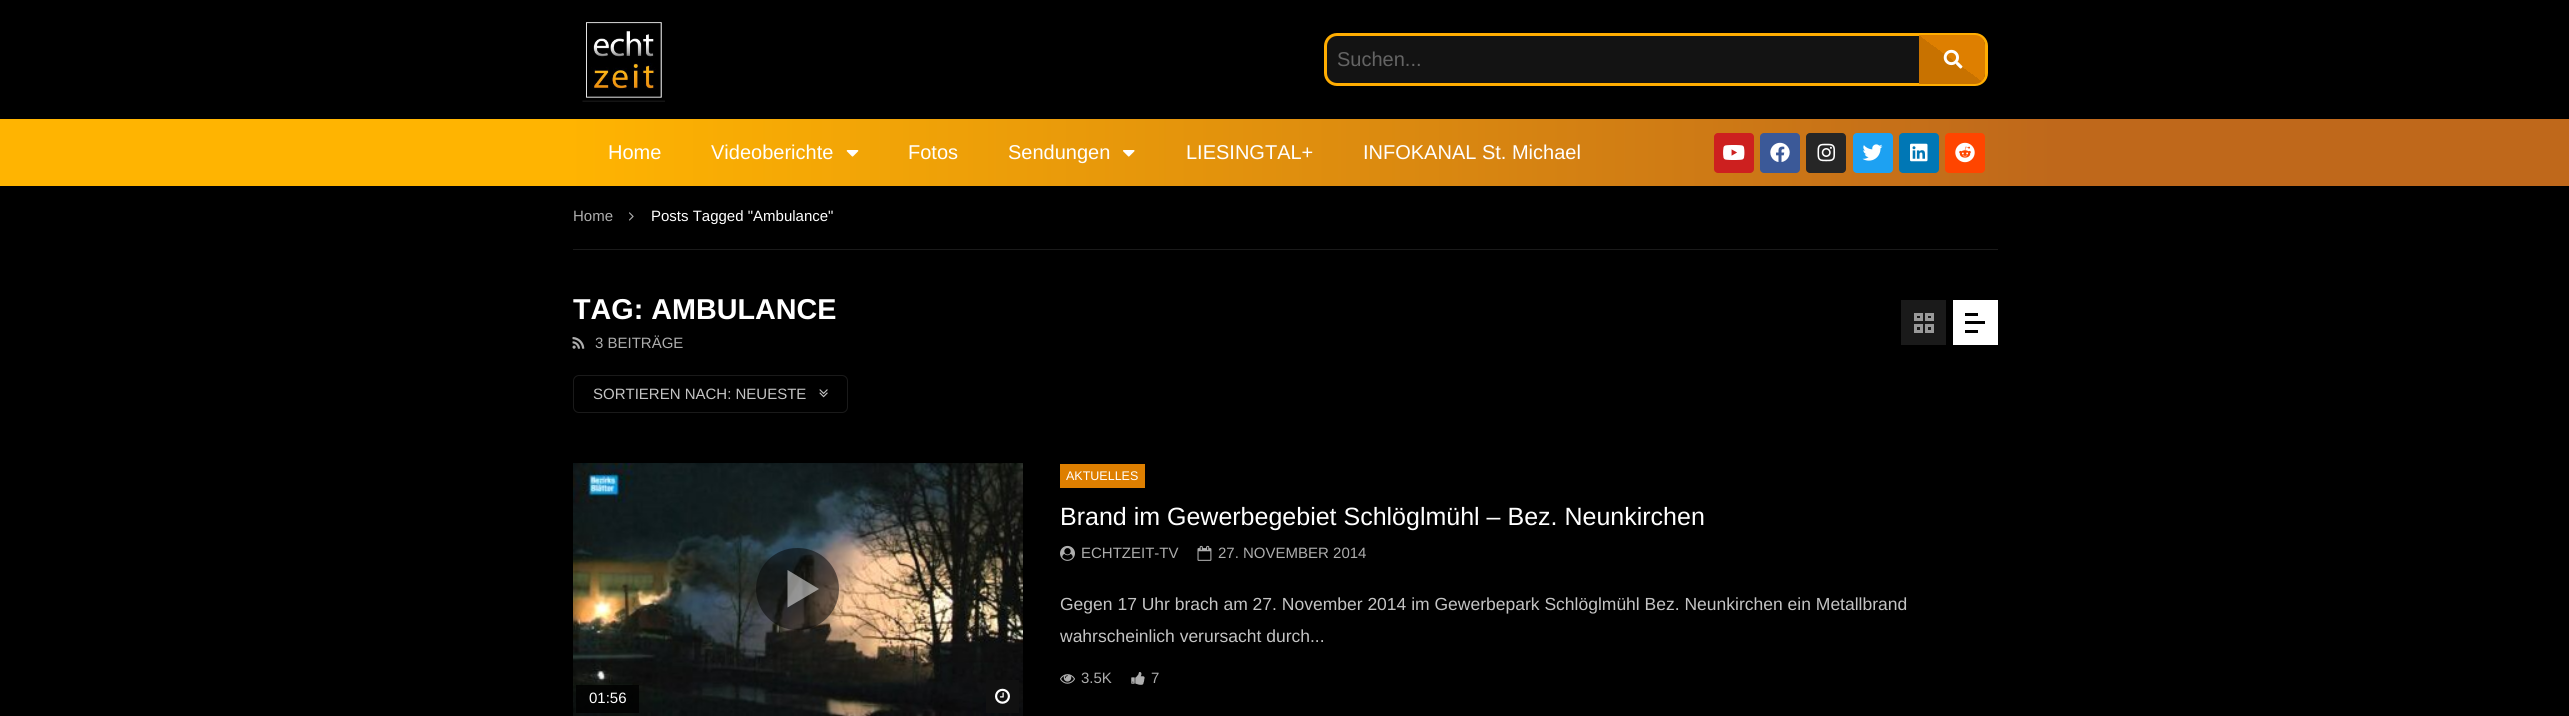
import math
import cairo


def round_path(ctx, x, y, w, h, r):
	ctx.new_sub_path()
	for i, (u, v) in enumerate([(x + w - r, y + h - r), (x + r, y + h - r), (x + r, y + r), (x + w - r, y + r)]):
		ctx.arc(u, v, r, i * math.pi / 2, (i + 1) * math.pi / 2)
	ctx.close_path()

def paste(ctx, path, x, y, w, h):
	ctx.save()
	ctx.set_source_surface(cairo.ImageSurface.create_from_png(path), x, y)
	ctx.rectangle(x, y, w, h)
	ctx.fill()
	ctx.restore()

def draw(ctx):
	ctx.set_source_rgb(0, 0, 0)
	ctx.paint()
	paste(ctx, 'media/1.png', 582, 22, 83, 80)
	ctx.set_source_rgb(0.078, 0.078, 0.078)
	round_path(ctx, 1325.5, 34.5, 661, 50, 11.5)
	ctx.fill_preserve()
	ctx.set_source_rgb(1, 0.678, 0.004)
	ctx.set_line_width(3)
	ctx.stroke()
	ctx.select_font_face('Liberation Sans')
	ctx.set_font_size(20)
	ctx.set_source_rgb(0.392, 0.392, 0.392)
	ctx.move_to(1337, 66)
	ctx.show_text('Suchen...')
	gradient = cairo.LinearGradient(1975, 28, 1929, 91)
	gradient.add_color_stop_rgba(0.5, 0.871, 0.498, 0, 1)
	gradient.add_color_stop_rgba(0.5, 0.784, 0.447, 0, 1)
	ctx.set_source(gradient)
	ctx.new_path()
	ctx.move_to(1919, 35)
	ctx.line_to(1975, 35)
	ctx.curve_to(1980.5, 35, 1985, 39.5, 1985, 45)
	ctx.line_to(1985, 74)
	ctx.curve_to(1985, 79.5, 1980.5, 84, 1975, 84)
	ctx.line_to(1919, 84)
	ctx.close_path()
	ctx.fill()
	paste(ctx, 'media/2.png', 1943, 49, 20, 20)
	gradient = cairo.LinearGradient(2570, 152, 0, 153)
	gradient.add_color_stop_rgba(0.2, 0.749, 0.408, 0.106, 1)
	gradient.add_color_stop_rgba(0.78, 1, 0.706, 0.004, 1)
	ctx.set_source(gradient)
	ctx.rectangle(0, 119, 2569, 67)
	ctx.fill()
	ctx.set_source_rgb(1, 1, 1)
	ctx.move_to(608, 159)
	ctx.show_text('Home')
	ctx.move_to(711, 159)
	ctx.show_text('Videoberichte')
	paste(ctx, 'media/3.png', 846, 150, 13, 7)
	ctx.move_to(908, 159)
	ctx.show_text('Fotos')
	ctx.move_to(1008, 159)
	ctx.show_text('Sendungen')
	paste(ctx, 'media/4.png', 1123, 150, 12, 7)
	ctx.move_to(1186, 159)
	ctx.show_text('LIESINGTAL+')
	ctx.move_to(1363, 159)
	ctx.show_text('INFOKANAL St. Michael')
	ctx.set_source_rgb(0.804, 0.125, 0.122)
	round_path(ctx, 1714, 133, 40, 40, 4)
	ctx.fill()
	paste(ctx, 'media/5.png', 1723, 145, 22, 15)
	ctx.set_source_rgb(0.231, 0.349, 0.596)
	round_path(ctx, 1760, 133, 40, 40, 4)
	ctx.fill()
	paste(ctx, 'media/6.png', 1770, 142, 20, 20)
	ctx.set_source_rgb(0.149, 0.149, 0.149)
	round_path(ctx, 1806, 133, 40, 40, 4)
	ctx.fill()
	paste(ctx, 'media/7.png', 1817, 143, 19, 19)
	ctx.set_source_rgb(0.114, 0.631, 0.949)
	round_path(ctx, 1853, 133, 40, 40, 4)
	ctx.fill()
	paste(ctx, 'media/8.png', 1862, 144, 21, 17)
	ctx.set_source_rgb(0, 0.467, 0.71)
	round_path(ctx, 1899, 133, 40, 40, 4)
	ctx.fill()
	paste(ctx, 'media/9.png', 1910, 143, 18, 19)
	ctx.set_source_rgb(1, 0.271, 0)
	round_path(ctx, 1945, 133, 40, 40, 4)
	ctx.fill()
	paste(ctx, 'media/10.png', 1955, 142, 20, 21)
	ctx.set_source_rgb(0.102, 0.102, 0.102)
	ctx.rectangle(573, 249, 1425, 1)
	ctx.fill()
	ctx.set_font_size(15)
	ctx.set_source_rgb(0.678, 0.678, 0.678)
	ctx.move_to(573, 221)
	ctx.show_text('Home')
	paste(ctx, 'media/11.png', 629, 212, 5, 9)
	ctx.set_source_rgb(1, 1, 1)
	ctx.move_to(651, 221)
	ctx.show_text('Posts Tagged "Ambulance"')
	ctx.select_font_face('Liberation Sans', cairo.FONT_SLANT_NORMAL, cairo.FONT_WEIGHT_BOLD)
	ctx.set_font_size(28.75)
	ctx.move_to(573, 319)
	ctx.show_text('TAG: AMBULANCE')
	paste(ctx, 'media/12.png', 572, 337, 13, 12)
	ctx.select_font_face('Liberation Sans')
	ctx.set_font_size(15)
	ctx.set_source_rgb(0.678, 0.678, 0.678)
	ctx.move_to(595, 348)
	ctx.show_text('3 BEITRÄGE')
	round_path(ctx, 573.5, 375.5, 274, 37, 5.5)
	ctx.set_source_rgb(0.102, 0.102, 0.102)
	ctx.set_line_width(1)
	ctx.stroke()
	ctx.set_source_rgb(0.769, 0.769, 0.769)
	ctx.move_to(593, 399)
	ctx.show_text('SORTIEREN NACH: NEUESTE')
	paste(ctx, 'media/13.png', 819, 389, 9, 9)
	ctx.set_source_rgb(0.102, 0.102, 0.102)
	ctx.rectangle(1901, 300, 45, 45)
	ctx.fill()
	ctx.rectangle(1915.5, 314.5, 6, 5)
	ctx.set_source_rgb(0.6, 0.6, 0.6)
	ctx.set_line_width(3)
	ctx.stroke()
	ctx.rectangle(1926.5, 314.5, 6, 5)
	ctx.stroke()
	ctx.rectangle(1915.5, 325.5, 6, 6)
	ctx.stroke()
	ctx.rectangle(1926.5, 325.5, 6, 6)
	ctx.stroke()
	ctx.set_source_rgb(1, 1, 1)
	ctx.rectangle(1953, 300, 45, 45)
	ctx.fill()
	ctx.set_source_rgb(0, 0, 0)
	ctx.rectangle(1965, 313, 13, 3)
	ctx.rectangle(1965, 321, 20, 3)
	ctx.rectangle(1965, 330, 13, 3)
	ctx.fill()
	ctx.set_source_rgb(0.871, 0.498, 0)
	ctx.rectangle(1060, 464, 85, 24)
	ctx.fill()
	ctx.set_font_size(12.5)
	ctx.set_source_rgb(1, 1, 1)
	ctx.move_to(1066, 480)
	ctx.show_text('AKTUELLES')
	ctx.set_font_size(25)
	ctx.move_to(1060, 525)
	ctx.show_text('Brand im Gewerbegebiet Schlöglmühl – Bez. Neunkirchen')
	paste(ctx, 'media/14.png', 1060, 545, 15, 16)
	ctx.set_font_size(15)
	ctx.set_source_rgb(0.678, 0.678, 0.678)
	ctx.move_to(1081, 558)
	ctx.show_text('ECHTZEIT-TV')
	paste(ctx, 'media/15.png', 1197, 545, 15, 16)
	ctx.move_to(1218, 558)
	ctx.show_text('27. NOVEMBER 2014')
	ctx.set_font_size(17.5)
	ctx.set_source_rgb(0.769, 0.769, 0.769)
	ctx.move_to(1060, 610)
	ctx.show_text('Gegen 17 Uhr brach am 27. November 2014 im Gewerbepark Schlöglmühl Bez. Neunkirchen ein Metallbrand')
	ctx.move_to(1060, 642)
	ctx.show_text('wahrscheinlich verursacht durch...')
	paste(ctx, 'media/16.png', 1060, 674, 15, 10)
	ctx.set_font_size(15)
	ctx.set_source_rgb(0.678, 0.678, 0.678)
	ctx.move_to(1081, 683)
	ctx.show_text('3.5K')
	paste(ctx, 'media/17.png', 1131, 672, 14, 13)
	ctx.move_to(1151, 683)
	ctx.show_text('7')
	paste(ctx, 'media/18.png', 573, 463, 450, 253)
	ctx.set_source_rgba(0, 0, 0, 0.5)
	round_path(ctx, 756, 548, 83, 82, 41)
	ctx.fill()
	ctx.set_source_rgba(1, 1, 1, 0.5)
	ctx.new_path()
	ctx.move_to(787.5, 607.5)
	ctx.line_to(787.5, 570)
	ctx.line_to(819, 589)
	ctx.close_path()
	ctx.fill()
	ctx.set_source_rgba(0, 0, 0, 0.8)
	ctx.rectangle(576, 685, 63, 28)
	ctx.fill()
	ctx.set_source_rgb(1, 1, 1)
	ctx.move_to(589, 703)
	ctx.show_text('01:56')
	ctx.set_source_rgb(0.067, 0.067, 0.067)
	ctx.rectangle(986, 680, 33, 33)
	ctx.fill()
	paste(ctx, 'media/19.png', 995, 688, 15, 16)


surface = cairo.ImageSurface(cairo.FORMAT_RGB24, 2569, 716)
ctx = cairo.Context(surface)
options = cairo.FontOptions()
options.set_hint_metrics(cairo.HINT_METRICS_OFF)
options.set_hint_style(cairo.HINT_STYLE_NONE)
ctx.set_font_options(options)
ctx.set_miter_limit(4)
draw(ctx)
surface.write_to_png('image.png')
